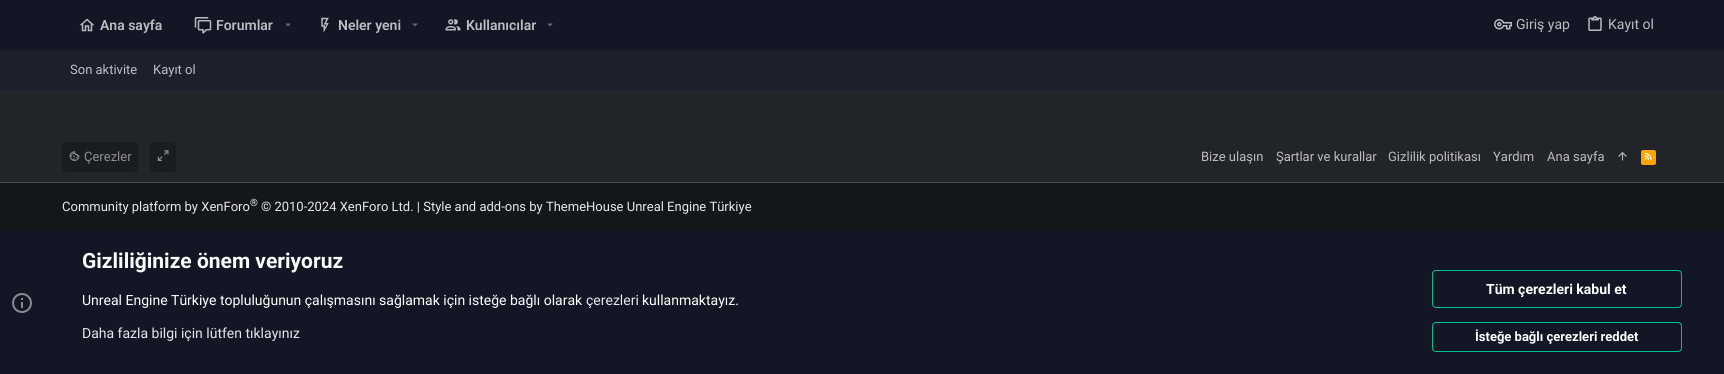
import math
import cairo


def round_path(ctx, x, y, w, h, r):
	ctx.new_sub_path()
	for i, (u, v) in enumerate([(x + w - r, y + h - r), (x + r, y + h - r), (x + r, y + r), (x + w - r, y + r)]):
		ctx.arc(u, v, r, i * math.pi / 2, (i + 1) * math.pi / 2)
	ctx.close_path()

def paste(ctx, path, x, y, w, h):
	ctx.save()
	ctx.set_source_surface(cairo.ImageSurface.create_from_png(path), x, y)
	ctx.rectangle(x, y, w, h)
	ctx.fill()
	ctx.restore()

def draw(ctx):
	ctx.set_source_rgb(0.129, 0.141, 0.157)
	ctx.paint()
	ctx.set_source_rgb(0.078, 0.086, 0.141)
	ctx.rectangle(0, 0, 1724, 50)
	ctx.fill()
	paste(ctx, 'media/1.png', 79, 18, 16, 14)
	ctx.select_font_face('Roboto SemiBold')
	ctx.set_font_size(14)
	ctx.set_source_rgb(0.737, 0.741, 0.749)
	ctx.move_to(100, 30)
	ctx.show_text('Ana sayfa')
	paste(ctx, 'media/2.png', 194, 17, 18, 17)
	ctx.move_to(216, 30)
	ctx.show_text('Forumlar')
	ctx.set_source_rgb(0.404, 0.408, 0.443)
	ctx.new_path()
	ctx.move_to(285, 23.5)
	ctx.line_to(288, 26.5)
	ctx.line_to(291, 23.5)
	ctx.close_path()
	ctx.fill()
	paste(ctx, 'media/3.png', 321, 17, 8, 16)
	ctx.set_source_rgb(0.737, 0.741, 0.749)
	ctx.move_to(338, 30)
	ctx.show_text('Neler yeni')
	ctx.set_source_rgb(0.404, 0.408, 0.443)
	ctx.new_path()
	ctx.move_to(412, 23.5)
	ctx.line_to(415, 26.5)
	ctx.line_to(418, 23.5)
	ctx.close_path()
	ctx.fill()
	paste(ctx, 'media/4.png', 445, 19, 16, 12)
	ctx.set_source_rgb(0.737, 0.741, 0.749)
	ctx.move_to(466, 30)
	ctx.show_text('Kullanıcılar')
	ctx.set_source_rgb(0.404, 0.408, 0.443)
	ctx.new_path()
	ctx.move_to(547, 23.5)
	ctx.line_to(550, 26.5)
	ctx.line_to(553, 23.5)
	ctx.close_path()
	ctx.fill()
	paste(ctx, 'media/5.png', 1494, 19, 18, 11)
	ctx.select_font_face('Roboto')
	ctx.set_source_rgb(0.737, 0.741, 0.749)
	ctx.move_to(1516, 29)
	ctx.show_text('Giriş yap')
	paste(ctx, 'media/6.png', 1588, 16, 14, 15)
	ctx.move_to(1608, 29)
	ctx.show_text('Kayıt ol')
	ctx.set_source_rgb(0.114, 0.122, 0.173)
	ctx.rectangle(0, 50, 1724, 40)
	ctx.fill()
	ctx.set_font_size(13)
	ctx.set_source_rgb(0.737, 0.753, 0.78)
	ctx.move_to(70, 74)
	ctx.show_text('Son aktivite')
	ctx.move_to(153, 74)
	ctx.show_text('Kayıt ol')
	ctx.set_source_rgb(0.102, 0.114, 0.125)
	round_path(ctx, 62, 142, 76, 30, 4)
	ctx.fill()
	paste(ctx, 'media/7.png', 69, 151, 11, 10)
	ctx.set_source_rgb(0.553, 0.557, 0.565)
	ctx.move_to(84, 161)
	ctx.show_text('Çerezler')
	ctx.set_source_rgb(0.102, 0.114, 0.125)
	round_path(ctx, 150, 142, 26, 30, 4)
	ctx.fill()
	paste(ctx, 'media/8.png', 157, 150, 12, 11)
	ctx.set_source_rgb(0.737, 0.741, 0.749)
	for x, y, s in [
		(1201, 161, 'Bize ulaşın'),
		(1276, 161, 'Şartlar ve kurallar'),
		(1388, 161, 'Gizlilik politikası'),
		(1493, 161, 'Yardım'),
		(1547, 161, 'Ana sayfa'),
	]:
		ctx.move_to(x, y)
		ctx.show_text(s)
	paste(ctx, 'media/9.png', 1618, 152, 9, 9)
	ctx.set_source_rgb(1, 0.647, 0)
	round_path(ctx, 1641, 150, 15, 15, 2)
	ctx.fill()
	paste(ctx, 'media/10.png', 1644, 152, 8, 8)
	ctx.set_source_rgb(0.082, 0.09, 0.102)
	ctx.rectangle(0, 183, 1724, 48)
	ctx.fill()
	ctx.set_source_rgb(0.282, 0.302, 0.337)
	ctx.rectangle(0, 182, 1724, 1)
	ctx.fill()
	ctx.set_source_rgb(0.902, 0.906, 0.918)
	ctx.move_to(62, 211)
	ctx.show_text('Community platform by XenForo')
	ctx.set_font_size(10)
	ctx.move_to(250, 206)
	ctx.show_text('®')
	ctx.set_font_size(13)
	ctx.move_to(261, 211)
	ctx.show_text('© 2010-2024 XenForo Ltd. | Style and add-ons by ThemeHouse Unreal Engine Türkiye')
	ctx.set_source_rgb(0.078, 0.086, 0.141)
	ctx.rectangle(0, 231, 1724, 143)
	ctx.fill()
	paste(ctx, 'media/11.png', 12, 293, 20, 20)
	ctx.select_font_face('Roboto', cairo.FONT_SLANT_NORMAL, cairo.FONT_WEIGHT_BOLD)
	ctx.set_font_size(21)
	ctx.set_source_rgb(1, 1, 1)
	ctx.move_to(82, 268)
	ctx.show_text('Gizliliğinize önem veriyoruz')
	ctx.select_font_face('Roboto')
	ctx.set_font_size(14)
	ctx.move_to(82, 305)
	ctx.show_text('Unreal Engine Türkiye topluluğunun çalışmasını sağlamak için isteğe bağlı olarak')
	ctx.set_source_rgb(0.902, 0.906, 0.918)
	ctx.move_to(586, 305)
	ctx.show_text('çerezleri')
	ctx.set_source_rgb(1, 1, 1)
	ctx.move_to(642, 305)
	ctx.show_text('kullanmaktayız.')
	ctx.set_source_rgb(0.902, 0.906, 0.918)
	ctx.move_to(82, 338)
	ctx.show_text('Daha fazla bilgi için lütfen tıklayınız')
	round_path(ctx, 1432.5, 270.5, 249, 37, 3.5)
	ctx.set_source_rgb(0, 0.761, 0.569)
	ctx.set_line_width(1)
	ctx.stroke()
	ctx.select_font_face('Roboto', cairo.FONT_SLANT_NORMAL, cairo.FONT_WEIGHT_BOLD)
	ctx.set_source_rgb(1, 1, 1)
	ctx.move_to(1486, 294)
	ctx.show_text('Tüm çerezleri kabul et')
	round_path(ctx, 1432.5, 322.5, 249, 29, 3.5)
	ctx.set_source_rgb(0, 0.761, 0.569)
	ctx.stroke()
	ctx.set_font_size(13)
	ctx.set_source_rgb(1, 1, 1)
	ctx.move_to(1475, 341)
	ctx.show_text('İsteğe bağlı çerezleri reddet')


surface = cairo.ImageSurface(cairo.FORMAT_RGB24, 1724, 374)
ctx = cairo.Context(surface)
options = cairo.FontOptions()
options.set_hint_metrics(cairo.HINT_METRICS_OFF)
options.set_hint_style(cairo.HINT_STYLE_NONE)
ctx.set_font_options(options)
ctx.set_miter_limit(4)
draw(ctx)
surface.write_to_png('image.png')
